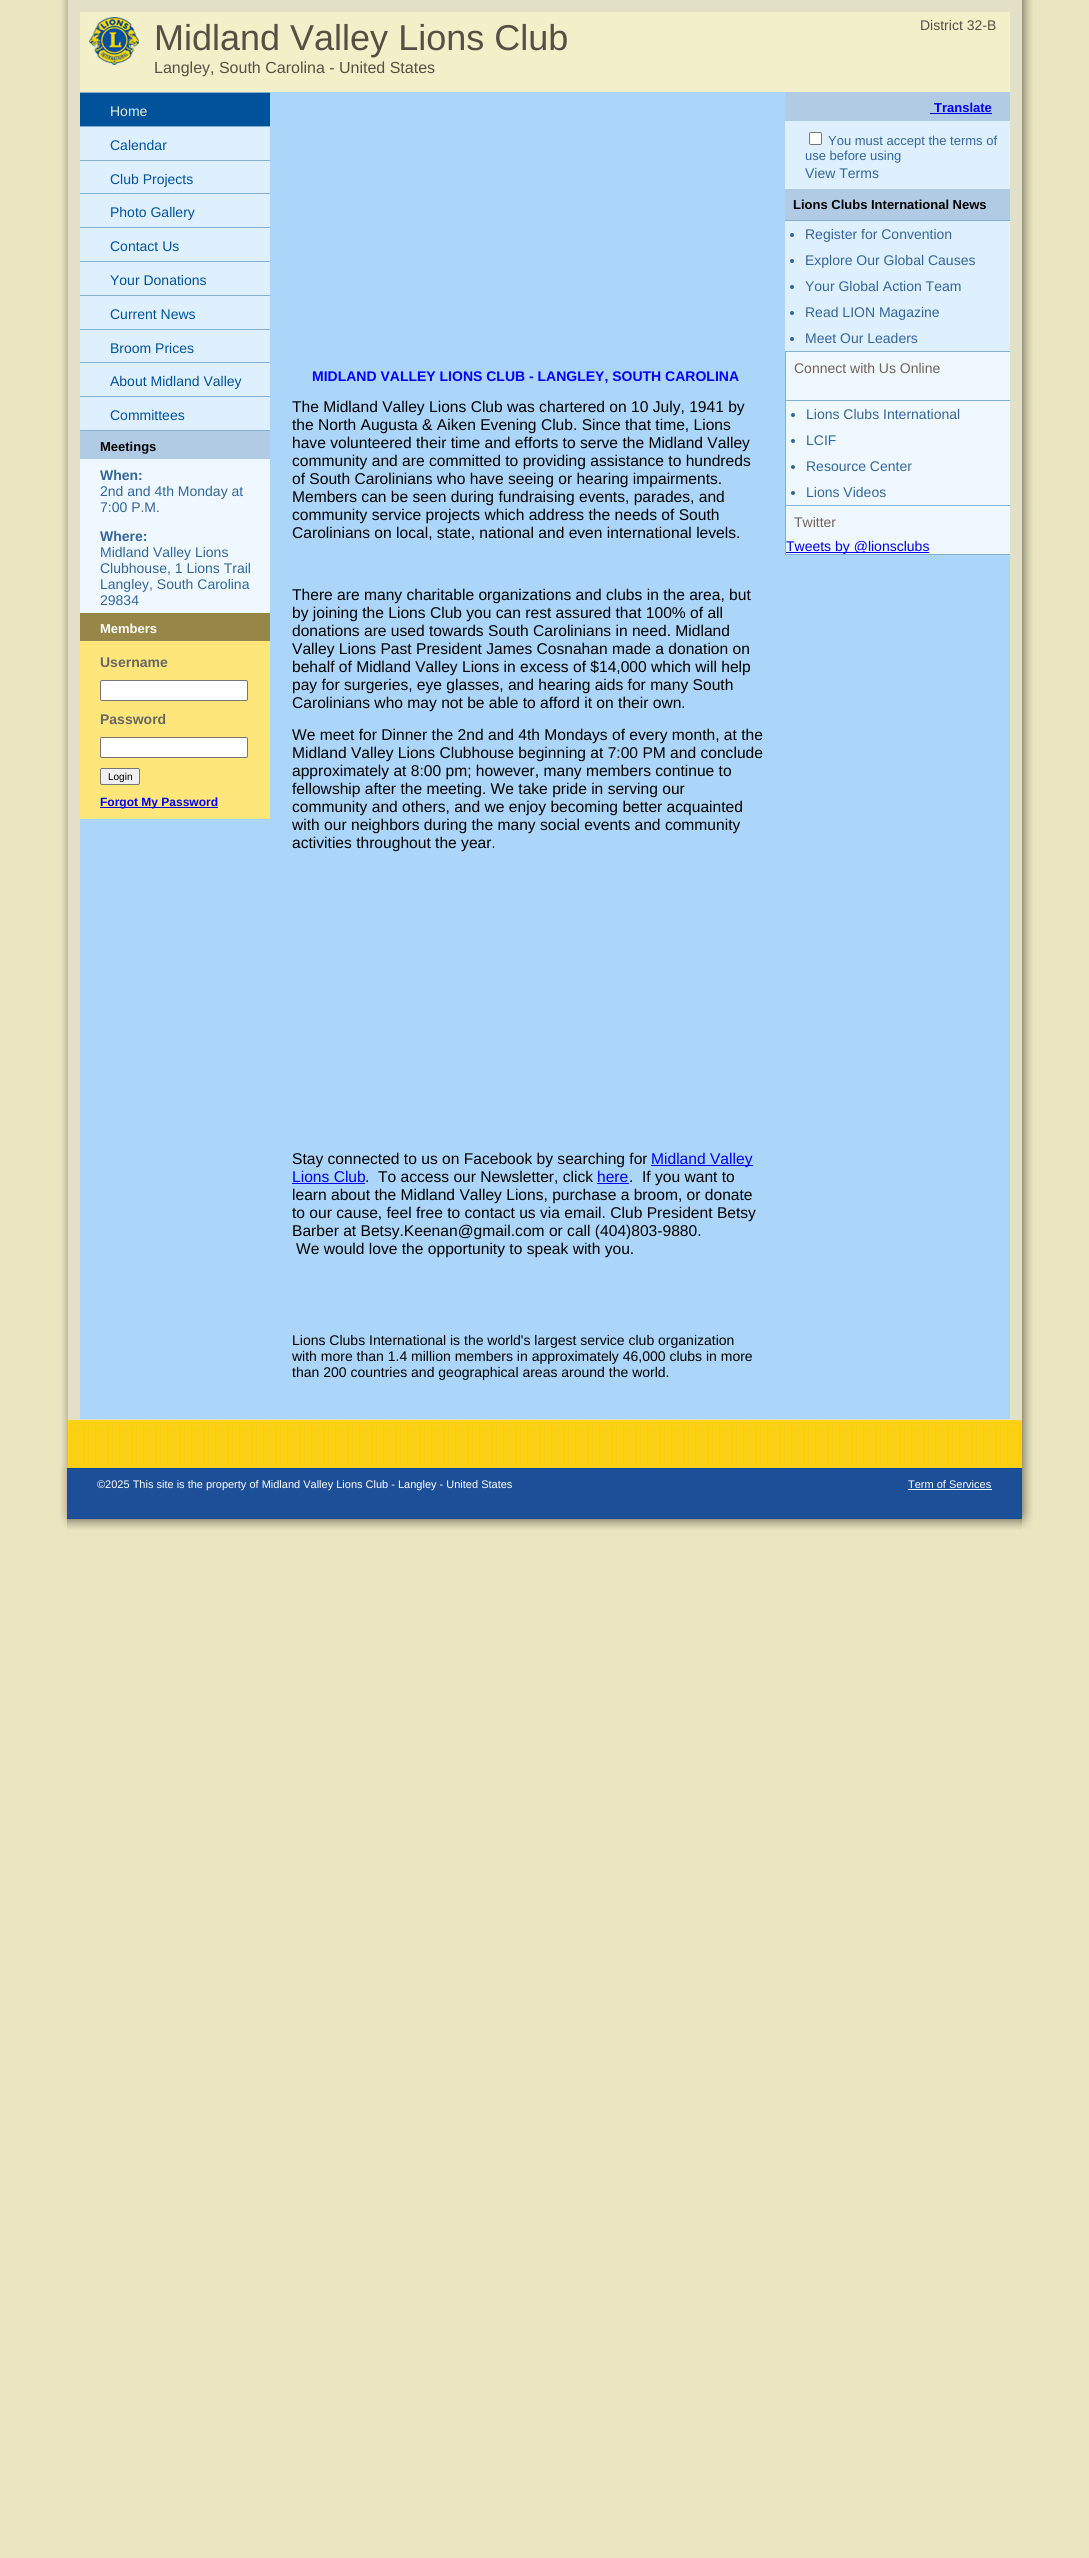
import math
import cairo


def round_path(ctx, x, y, w, h, r):
	ctx.new_sub_path()
	for i, (u, v) in enumerate([(x + w - r, y + h - r), (x + r, y + h - r), (x + r, y + r), (x + w - r, y + r)]):
		ctx.arc(u, v, r, i * math.pi / 2, (i + 1) * math.pi / 2)
	ctx.close_path()

def paste(ctx, path, x, y, w, h):
	ctx.save()
	ctx.set_source_surface(cairo.ImageSurface.create_from_png(path), x, y)
	ctx.rectangle(x, y, w, h)
	ctx.fill()
	ctx.restore()

def draw(ctx):
	ctx.set_source_rgb(0.922, 0.902, 0.753)
	ctx.paint()
	paste(ctx, 'media/1.png', 61, 0, 7, 1468)
	ctx.set_source_rgb(0.886, 0.878, 0.776)
	ctx.rectangle(68, 0, 954, 1420)
	ctx.fill()
	paste(ctx, 'media/2.png', 68, 1420, 954, 48)
	ctx.set_source_rgb(0.953, 0.941, 0.788)
	ctx.rectangle(80, 12, 930, 80)
	ctx.fill()
	paste(ctx, 'media/3.png', 89, 17, 50, 48)
	ctx.select_font_face('Liberation Sans')
	ctx.set_font_size(36)
	ctx.set_source_rgb(0.345, 0.31, 0.267)
	ctx.move_to(154, 50)
	ctx.show_text('Midland Valley Lions Club')
	ctx.set_font_size(16)
	ctx.move_to(154, 73)
	ctx.show_text('Langley, South Carolina - United States')
	ctx.set_font_size(14)
	ctx.move_to(920, 30)
	ctx.show_text('District 32-B')
	ctx.set_source_rgb(0.671, 0.839, 0.976)
	ctx.rectangle(80, 92, 930, 1327)
	ctx.fill()
	ctx.set_source_rgb(0.522, 0.69, 0.839)
	ctx.rectangle(80, 92, 190, 1)
	ctx.rectangle(80, 126, 190, 1)
	ctx.fill()
	ctx.set_source_rgb(0, 0.322, 0.608)
	ctx.rectangle(80, 93, 190, 33)
	ctx.fill()
	ctx.set_source_rgb(0.929, 0.918, 0.855)
	ctx.move_to(110, 116)
	ctx.show_text('Home')
	ctx.set_source_rgb(0.522, 0.69, 0.839)
	ctx.rectangle(80, 160, 190, 1)
	ctx.fill()
	ctx.set_source_rgb(0.871, 0.937, 0.992)
	ctx.rectangle(80, 127, 190, 33)
	ctx.fill()
	ctx.set_source_rgb(0, 0.322, 0.608)
	ctx.move_to(110, 150)
	ctx.show_text('Calendar')
	ctx.set_source_rgb(0.522, 0.69, 0.839)
	ctx.rectangle(80, 193, 190, 1)
	ctx.fill()
	ctx.set_source_rgb(0.871, 0.937, 0.992)
	ctx.rectangle(80, 161, 190, 32)
	ctx.fill()
	ctx.set_source_rgb(0, 0.322, 0.608)
	ctx.move_to(110, 184)
	ctx.show_text('Club Projects')
	ctx.set_source_rgb(0.522, 0.69, 0.839)
	ctx.rectangle(80, 227, 190, 1)
	ctx.fill()
	ctx.set_source_rgb(0.871, 0.937, 0.992)
	ctx.rectangle(80, 194, 190, 33)
	ctx.fill()
	ctx.set_source_rgb(0, 0.322, 0.608)
	ctx.move_to(110, 217)
	ctx.show_text('Photo Gallery')
	ctx.set_source_rgb(0.522, 0.69, 0.839)
	ctx.rectangle(80, 261, 190, 1)
	ctx.fill()
	ctx.set_source_rgb(0.871, 0.937, 0.992)
	ctx.rectangle(80, 228, 190, 33)
	ctx.fill()
	ctx.set_source_rgb(0, 0.322, 0.608)
	ctx.move_to(110, 251)
	ctx.show_text('Contact Us')
	ctx.set_source_rgb(0.522, 0.69, 0.839)
	ctx.rectangle(80, 295, 190, 1)
	ctx.fill()
	ctx.set_source_rgb(0.871, 0.937, 0.992)
	ctx.rectangle(80, 262, 190, 33)
	ctx.fill()
	ctx.set_source_rgb(0, 0.322, 0.608)
	ctx.move_to(110, 285)
	ctx.show_text('Your Donations')
	ctx.set_source_rgb(0.522, 0.69, 0.839)
	ctx.rectangle(80, 329, 190, 1)
	ctx.fill()
	ctx.set_source_rgb(0.871, 0.937, 0.992)
	ctx.rectangle(80, 296, 190, 33)
	ctx.fill()
	ctx.set_source_rgb(0, 0.322, 0.608)
	ctx.move_to(110, 319)
	ctx.show_text('Current News')
	ctx.set_source_rgb(0.522, 0.69, 0.839)
	ctx.rectangle(80, 362, 190, 1)
	ctx.fill()
	ctx.set_source_rgb(0.871, 0.937, 0.992)
	ctx.rectangle(80, 330, 190, 32)
	ctx.fill()
	ctx.set_source_rgb(0, 0.322, 0.608)
	ctx.move_to(110, 353)
	ctx.show_text('Broom Prices')
	ctx.set_source_rgb(0.522, 0.69, 0.839)
	ctx.rectangle(80, 396, 190, 1)
	ctx.fill()
	ctx.set_source_rgb(0.871, 0.937, 0.992)
	ctx.rectangle(80, 363, 190, 33)
	ctx.fill()
	ctx.set_source_rgb(0, 0.322, 0.608)
	ctx.move_to(110, 386)
	ctx.show_text('About Midland Valley')
	ctx.set_source_rgb(0.522, 0.69, 0.839)
	ctx.rectangle(80, 430, 190, 1)
	ctx.fill()
	ctx.set_source_rgb(0.871, 0.937, 0.992)
	ctx.rectangle(80, 397, 190, 33)
	ctx.fill()
	ctx.set_source_rgb(0, 0.322, 0.608)
	ctx.move_to(110, 420)
	ctx.show_text('Committees')
	ctx.set_source_rgb(0.937, 0.969, 0.996)
	ctx.rectangle(80, 459, 190, 154)
	ctx.fill()
	ctx.set_source_rgb(0.69, 0.796, 0.89)
	ctx.rectangle(80, 431, 190, 28)
	ctx.fill()
	ctx.select_font_face('Liberation Sans', cairo.FONT_SLANT_NORMAL, cairo.FONT_WEIGHT_BOLD)
	ctx.set_font_size(13)
	ctx.set_source_rgb(0, 0, 0)
	ctx.move_to(100, 451)
	ctx.show_text('Meetings')
	ctx.set_font_size(14)
	ctx.set_source_rgb(0.2, 0.4, 0.6)
	ctx.move_to(100, 480)
	ctx.show_text('When:')
	ctx.select_font_face('Liberation Sans')
	ctx.move_to(100, 496)
	ctx.show_text('2nd and 4th Monday at')
	ctx.move_to(100, 512)
	ctx.show_text('7:00 P.M.')
	ctx.select_font_face('Liberation Sans', cairo.FONT_SLANT_NORMAL, cairo.FONT_WEIGHT_BOLD)
	ctx.move_to(100, 541)
	ctx.show_text('Where:')
	ctx.select_font_face('Liberation Sans')
	for x, y, s in [
		(100, 557, 'Midland Valley Lions'),
		(100, 573, 'Clubhouse, 1 Lions Trail'),
		(100, 589, 'Langley, South Carolina'),
		(100, 605, '29834'),
	]:
		ctx.move_to(x, y)
		ctx.show_text(s)
	ctx.set_source_rgb(0.996, 0.902, 0.478)
	ctx.rectangle(80, 641, 190, 178)
	ctx.fill()
	ctx.set_source_rgb(0.588, 0.525, 0.282)
	ctx.rectangle(80, 613, 190, 28)
	ctx.fill()
	ctx.select_font_face('Liberation Sans', cairo.FONT_SLANT_NORMAL, cairo.FONT_WEIGHT_BOLD)
	ctx.set_font_size(13)
	ctx.set_source_rgb(1, 1, 1)
	ctx.move_to(100, 633)
	ctx.show_text('Members')
	ctx.set_font_size(14)
	ctx.set_source_rgb(0.4, 0.4, 0.4)
	ctx.move_to(100, 667)
	ctx.show_text('Username')
	ctx.set_source_rgb(1, 1, 1)
	round_path(ctx, 100.5, 680.5, 147, 20, 1.5)
	ctx.fill_preserve()
	ctx.set_source_rgb(0.463, 0.463, 0.463)
	ctx.set_line_width(1)
	ctx.stroke()
	ctx.set_source_rgb(0.4, 0.4, 0.4)
	ctx.move_to(100, 724)
	ctx.show_text('Password')
	ctx.set_source_rgb(1, 1, 1)
	round_path(ctx, 100.5, 737.5, 147, 20, 1.5)
	ctx.fill_preserve()
	ctx.set_source_rgb(0.463, 0.463, 0.463)
	ctx.stroke()
	ctx.set_source_rgb(0.937, 0.937, 0.937)
	round_path(ctx, 100.5, 768.5, 39, 16, 1.5)
	ctx.fill_preserve()
	ctx.set_source_rgb(0.463, 0.463, 0.463)
	ctx.stroke()
	ctx.select_font_face('Liberation Sans')
	ctx.set_font_size(10)
	ctx.set_source_rgb(0, 0, 0)
	ctx.move_to(108, 780)
	ctx.show_text('Login')
	ctx.set_source_rgb(0, 0, 0.933)
	ctx.rectangle(100, 807, 118, 1)
	ctx.fill()
	ctx.select_font_face('Liberation Sans', cairo.FONT_SLANT_NORMAL, cairo.FONT_WEIGHT_BOLD)
	ctx.set_font_size(12)
	ctx.move_to(100, 806)
	ctx.show_text('Forgot My Password')
	ctx.set_font_size(14)
	ctx.set_source_rgb(0, 0, 1)
	ctx.move_to(312, 381)
	ctx.show_text('MIDLAND VALLEY LIONS CLUB - LANGLEY, SOUTH CAROLINA')
	ctx.select_font_face('Liberation Sans')
	ctx.set_font_size(15.6)
	ctx.set_source_rgb(0, 0, 0)
	for x, y, s in [
		(292, 412, 'The Midland Valley Lions Club was chartered on 10 July, 1941 by'),
		(292, 430, 'the North Augusta & Aiken Evening Club. Since that time, Lions'),
		(292, 448, 'have volunteered their time and efforts to serve the Midland Valley'),
		(292, 466, 'community and are committed to providing assistance to hundreds'),
		(292, 484, 'of South Carolinians who have seeing or hearing impairments.'),
		(292, 502, 'Members can be seen during fundraising events, parades, and'),
		(292, 520, 'community service projects which address the needs of South'),
		(292, 538, 'Carolinians on local, state, national and even international levels.'),
		(292, 600, 'There are many charitable organizations and clubs in the area, but'),
		(292, 618, 'by joining the Lions Club you can rest assured that 100% of all'),
		(292, 636, 'donations are used towards South Carolinians in need. Midland'),
		(292, 654, 'Valley Lions Past President James Cosnahan made a donation on'),
		(292, 672, 'behalf of Midland Valley Lions in excess of $14,000 which will help'),
		(292, 690, 'pay for surgeries, eye glasses, and hearing aids for many South'),
		(292, 708, 'Carolinians who may not be able to afford it on their own.'),
		(292, 740, 'We meet for Dinner the 2nd and 4th Mondays of every month, at the'),
		(292, 758, 'Midland Valley Lions Clubhouse beginning at 7:00 PM and conclude'),
		(292, 776, 'approximately at 8:00 pm; however, many members continue to'),
		(292, 794, 'fellowship after the meeting. We take pride in serving our'),
		(292, 812, 'community and others, and we enjoy becoming better acquainted'),
		(292, 830, 'with our neighbors during the many social events and community'),
		(292, 848, 'activities throughout the year.'),
		(292, 1164, 'Stay connected to us on Facebook by searching for'),
	]:
		ctx.move_to(x, y)
		ctx.show_text(s)
	ctx.set_source_rgb(0, 0, 0.933)
	ctx.rectangle(651, 1165, 102, 1)
	ctx.fill()
	ctx.move_to(651, 1164)
	ctx.show_text('Midland Valley')
	ctx.move_to(292, 1182)
	ctx.show_text('Lions Club')
	ctx.rectangle(292, 1183, 73, 1)
	ctx.fill()
	ctx.set_source_rgb(0, 0, 0)
	ctx.move_to(365, 1182)
	ctx.show_text('.  To access our Newsletter, click')
	ctx.set_source_rgb(0, 0, 0.933)
	ctx.move_to(597, 1182)
	ctx.show_text('here')
	ctx.set_source_rgb(0, 0, 0)
	ctx.move_to(629, 1182)
	ctx.show_text('.  If you want to')
	ctx.set_source_rgb(0, 0, 0.933)
	ctx.rectangle(597, 1183, 32, 1)
	ctx.fill()
	ctx.set_source_rgb(0, 0, 0)
	for x, y, s in [
		(292, 1200, 'learn about the Midland Valley Lions, purchase a broom, or donate'),
		(292, 1218, 'to our cause, feel free to contact us via email. Club President Betsy'),
		(292, 1236, 'Barber at Betsy.Keenan@gmail.com or call (404)803-9880.'),
		(296, 1254, 'We would love the opportunity to speak with you.'),
	]:
		ctx.move_to(x, y)
		ctx.show_text(s)
	ctx.set_font_size(14)
	for x, y, s in [
		(292, 1345, 'Lions Clubs International is the world\'s largest service club organization'),
		(292, 1361, 'with more than 1.4 million members in approximately 46,000 clubs in more'),
		(292, 1377, 'than 200 countries and geographical areas around the world.'),
	]:
		ctx.move_to(x, y)
		ctx.show_text(s)
	ctx.set_source_rgb(0.871, 0.937, 0.992)
	ctx.rectangle(785, 121, 225, 68)
	ctx.fill()
	ctx.set_source_rgb(0.69, 0.796, 0.89)
	ctx.rectangle(785, 92, 225, 29)
	ctx.fill()
	ctx.select_font_face('Liberation Sans', cairo.FONT_SLANT_NORMAL, cairo.FONT_WEIGHT_BOLD)
	ctx.set_font_size(13)
	ctx.set_source_rgb(0, 0, 0.933)
	ctx.move_to(934, 112)
	ctx.show_text('Translate')
	ctx.rectangle(930, 113, 62, 1)
	ctx.fill()
	ctx.set_source_rgb(1, 1, 1)
	round_path(ctx, 809.5, 132.5, 12, 12, 1.5)
	ctx.fill_preserve()
	ctx.set_source_rgb(0.463, 0.463, 0.463)
	ctx.stroke()
	ctx.select_font_face('Liberation Sans')
	ctx.set_source_rgb(0.2, 0.4, 0.6)
	ctx.move_to(828, 145)
	ctx.show_text('You must accept the terms of')
	ctx.move_to(805, 160)
	ctx.show_text('use before using')
	ctx.set_font_size(14)
	ctx.move_to(805, 178)
	ctx.show_text('View Terms')
	ctx.set_source_rgb(0.871, 0.937, 0.992)
	ctx.rectangle(785, 221, 225, 130)
	ctx.fill()
	ctx.set_source_rgb(0.69, 0.796, 0.89)
	ctx.rectangle(785, 189, 225, 31)
	ctx.fill()
	ctx.select_font_face('Liberation Sans', cairo.FONT_SLANT_NORMAL, cairo.FONT_WEIGHT_BOLD)
	ctx.set_font_size(13)
	ctx.set_source_rgb(0, 0, 0)
	ctx.move_to(793, 209)
	ctx.show_text('Lions Clubs International News')
	ctx.set_source_rgb(0.522, 0.69, 0.839)
	ctx.rectangle(785, 220, 225, 1)
	ctx.fill()
	ctx.set_source_rgb(0.2, 0.4, 0.6)
	ctx.arc(792, 235, 2, 0, 2 * math.pi)
	ctx.fill()
	ctx.select_font_face('Liberation Sans')
	ctx.set_font_size(14)
	ctx.move_to(805, 239)
	ctx.show_text('Register for Convention')
	ctx.new_path()
	ctx.arc(792, 261, 2, 0, 2 * math.pi)
	ctx.fill()
	ctx.move_to(805, 265)
	ctx.show_text('Explore Our Global Causes')
	ctx.new_path()
	ctx.arc(792, 287, 2, 0, 2 * math.pi)
	ctx.fill()
	ctx.move_to(805, 291)
	ctx.show_text('Your Global Action Team')
	ctx.new_path()
	ctx.arc(792, 313, 2, 0, 2 * math.pi)
	ctx.fill()
	ctx.move_to(805, 317)
	ctx.show_text('Read LION Magazine')
	ctx.new_path()
	ctx.arc(792, 339, 2, 0, 2 * math.pi)
	ctx.fill()
	ctx.move_to(805, 343)
	ctx.show_text('Meet Our Leaders')
	ctx.set_source_rgb(0.522, 0.69, 0.839)
	ctx.rectangle(785, 351, 225, 1)
	ctx.fill()
	ctx.set_source_rgb(0.937, 0.969, 0.996)
	ctx.rectangle(786, 352, 224, 48)
	ctx.fill()
	ctx.set_source_rgb(0.522, 0.69, 0.839)
	ctx.rectangle(785, 352, 1, 48)
	ctx.fill()
	ctx.set_source_rgb(0.439, 0.388, 0.337)
	ctx.move_to(794, 373)
	ctx.show_text('Connect with Us Online')
	ctx.set_source_rgb(0.522, 0.69, 0.839)
	ctx.rectangle(785, 400, 225, 1)
	ctx.fill()
	ctx.set_source_rgb(0.937, 0.969, 0.996)
	ctx.rectangle(786, 401, 224, 104)
	ctx.fill()
	ctx.set_source_rgb(0.522, 0.69, 0.839)
	ctx.rectangle(785, 401, 1, 104)
	ctx.fill()
	ctx.set_source_rgb(0.2, 0.4, 0.6)
	ctx.arc(793, 415, 2, 0, 2 * math.pi)
	ctx.fill()
	ctx.move_to(806, 419)
	ctx.show_text('Lions Clubs International')
	ctx.new_path()
	ctx.arc(793, 441, 2, 0, 2 * math.pi)
	ctx.fill()
	ctx.move_to(806, 445)
	ctx.show_text('LCIF')
	ctx.new_path()
	ctx.arc(793, 467, 2, 0, 2 * math.pi)
	ctx.fill()
	ctx.move_to(806, 471)
	ctx.show_text('Resource Center')
	ctx.new_path()
	ctx.arc(793, 493, 2, 0, 2 * math.pi)
	ctx.fill()
	ctx.move_to(806, 497)
	ctx.show_text('Lions Videos')
	ctx.set_source_rgb(0.522, 0.69, 0.839)
	ctx.rectangle(785, 505, 225, 1)
	ctx.fill()
	ctx.set_source_rgb(0.937, 0.969, 0.996)
	ctx.rectangle(786, 506, 224, 48)
	ctx.fill()
	ctx.set_source_rgb(0.522, 0.69, 0.839)
	ctx.rectangle(785, 506, 1, 48)
	ctx.fill()
	ctx.set_source_rgb(0.439, 0.388, 0.337)
	ctx.move_to(794, 527)
	ctx.show_text('Twitter')
	ctx.set_source_rgb(0, 0, 0.933)
	ctx.rectangle(786, 552, 143, 1)
	ctx.fill()
	ctx.move_to(786, 551)
	ctx.show_text('Tweets by @lionsclubs')
	ctx.set_source_rgb(0.522, 0.69, 0.839)
	ctx.rectangle(785, 554, 225, 1)
	ctx.fill()
	paste(ctx, 'media/4.png', 1022, 0, 11, 1468)
	paste(ctx, 'media/5.png', 60, 1468, 7, 59)
	paste(ctx, 'media/6.png', 67, 1468, 841, 62)
	ctx.set_font_size(11)
	ctx.set_source_rgb(1, 1, 1)
	ctx.move_to(97, 1488)
	ctx.show_text('©2025 This site is the property of Midland Valley Lions Club - Langley - United States')
	paste(ctx, 'media/7.png', 908, 1468, 114, 62)
	ctx.move_to(908, 1488)
	ctx.show_text('Term of Services')
	ctx.rectangle(908, 1489, 84, 1)
	ctx.fill()
	paste(ctx, 'media/8.png', 1022, 1468, 11, 61)


surface = cairo.ImageSurface(cairo.FORMAT_RGB24, 1089, 2558)
ctx = cairo.Context(surface)
options = cairo.FontOptions()
options.set_hint_metrics(cairo.HINT_METRICS_OFF)
options.set_hint_style(cairo.HINT_STYLE_NONE)
ctx.set_font_options(options)
ctx.set_miter_limit(4)
draw(ctx)
surface.write_to_png('image.png')
